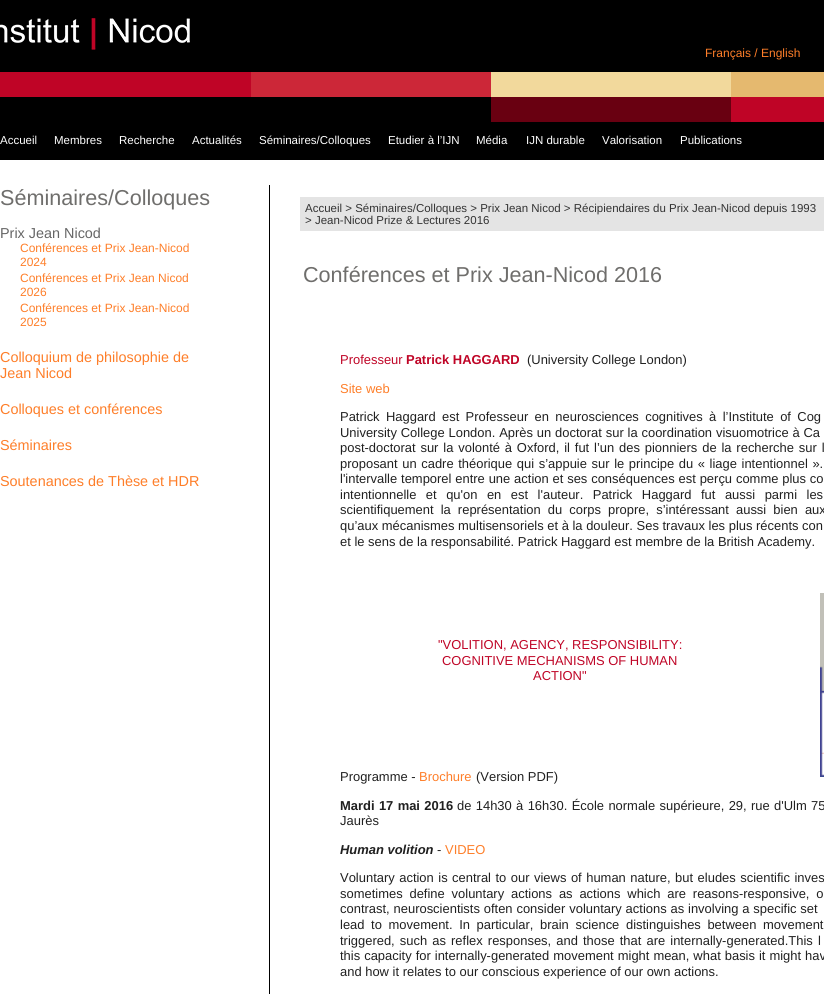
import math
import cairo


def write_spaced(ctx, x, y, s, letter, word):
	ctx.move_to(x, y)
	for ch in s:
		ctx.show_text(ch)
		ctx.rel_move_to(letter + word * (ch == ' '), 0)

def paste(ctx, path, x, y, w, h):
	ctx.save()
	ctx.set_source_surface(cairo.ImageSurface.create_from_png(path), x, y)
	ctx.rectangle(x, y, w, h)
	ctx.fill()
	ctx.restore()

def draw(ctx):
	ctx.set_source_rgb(1, 1, 1)
	ctx.paint()
	ctx.set_source_rgb(0, 0, 0)
	ctx.rectangle(0, 0, 824, 160)
	ctx.fill()
	paste(ctx, 'media/1.png', 0, 72, 824, 50)
	paste(ctx, 'media/2.png', 0, 18, 190, 32)
	ctx.select_font_face('Liberation Sans')
	ctx.set_font_size(12)
	ctx.set_source_rgb(0.996, 0.494, 0.161)
	ctx.move_to(705, 57)
	ctx.show_text('Français / English')
	ctx.set_font_size(11.5)
	ctx.set_source_rgb(1, 1, 1)
	for x, y, s in [
		(0, 144, 'Accueil'),
		(54, 144, 'Membres'),
		(119, 144, 'Recherche'),
		(192, 144, 'Actualités'),
		(259, 144, 'Séminaires/Colloques'),
		(388, 144, 'Etudier à l’IJN'),
		(476, 144, 'Média'),
		(526, 144, 'IJN durable'),
		(602, 144, 'Valorisation'),
		(680, 144, 'Publications'),
	]:
		ctx.move_to(x, y)
		ctx.show_text(s)
	ctx.set_font_size(21.6)
	ctx.set_source_rgb(0.435, 0.431, 0.424)
	ctx.move_to(0, 205)
	ctx.show_text('Séminaires/Colloques')
	ctx.set_font_size(14.4)
	ctx.set_source_rgb(0.4, 0.4, 0.4)
	ctx.move_to(0, 238)
	ctx.show_text('Prix Jean Nicod')
	ctx.set_font_size(12)
	ctx.set_source_rgb(0.996, 0.494, 0.161)
	for x, y, s in [
		(20, 252, 'Conférences et Prix Jean-Nicod'),
		(20, 266, '2024'),
		(20, 282, 'Conférences et Prix Jean Nicod'),
		(20, 296, '2026'),
		(20, 312, 'Conférences et Prix Jean-Nicod'),
		(20, 326, '2025'),
	]:
		ctx.move_to(x, y)
		ctx.show_text(s)
	ctx.set_font_size(14.4)
	for x, y, s in [
		(0, 362, 'Colloquium de philosophie de'),
		(0, 378, 'Jean Nicod'),
		(0, 414, 'Colloques et conférences'),
		(0, 450, 'Séminaires'),
		(0, 486, 'Soutenances de Thèse et HDR'),
	]:
		ctx.move_to(x, y)
		ctx.show_text(s)
	ctx.set_source_rgb(0, 0, 0)
	ctx.rectangle(269, 185, 1, 809)
	ctx.fill()
	ctx.set_source_rgb(0.894, 0.894, 0.894)
	ctx.rectangle(300, 197, 524, 34)
	ctx.fill()
	ctx.set_font_size(11.5)
	ctx.set_source_rgb(0.2, 0.2, 0.2)
	ctx.move_to(305, 212)
	ctx.show_text('Accueil > Séminaires/Colloques > Prix Jean Nicod > Récipiendaires du Prix Jean-Nicod depuis 1993')
	ctx.move_to(305, 224)
	ctx.show_text('> Jean-Nicod Prize & Lectures 2016')
	ctx.set_font_size(21.6)
	ctx.set_source_rgb(0.435, 0.431, 0.424)
	ctx.move_to(303, 282)
	ctx.show_text('Conférences et Prix Jean-Nicod 2016')
	ctx.set_font_size(12.95)
	ctx.set_source_rgb(0.749, 0.016, 0.149)
	ctx.move_to(340, 364)
	ctx.show_text('Professeur')
	ctx.select_font_face('Liberation Sans', cairo.FONT_SLANT_NORMAL, cairo.FONT_WEIGHT_BOLD)
	ctx.move_to(406, 364)
	ctx.show_text('Patrick HAGGARD')
	ctx.select_font_face('Liberation Sans')
	ctx.set_source_rgb(0.125, 0.125, 0.125)
	ctx.move_to(527, 364)
	ctx.show_text('(University College London)')
	ctx.set_source_rgb(0.996, 0.494, 0.161)
	ctx.move_to(340, 393)
	ctx.show_text('Site web')
	ctx.set_source_rgb(0.125, 0.125, 0.125)
	write_spaced(ctx, 340, 421, 'Patrick Haggard est Professeur en neurosciences cognitives à l’Institute of Cog', 0, 2.75)
	write_spaced(ctx, 340, 437, 'University College London. Après un doctorat sur la coordination visuomotrice à Ca', 0, 0.25)
	write_spaced(ctx, 340, 452, 'post-doctorat sur la volonté à Oxford, il fut l’un des pionniers de la recherche sur l', 0, 1.25)
	write_spaced(ctx, 340, 468, 'proposant un cadre théorique qui s’appuie sur le principe du « liage intentionnel ».', 0, 1)
	write_spaced(ctx, 340, 483, 'l\'intervalle temporel entre une action et ses conséquences est perçu comme plus co', 0, 0.25)
	write_spaced(ctx, 340, 499, 'intentionnelle et qu\'on en est l\'auteur. Patrick Haggard fut aussi parmi les', 0, 5.9)
	write_spaced(ctx, 340, 514, 'scientifiquement la représentation du corps propre, s’intéressant aussi bien aux', 0, 3.5)
	ctx.move_to(340, 530)
	ctx.show_text('qu’aux mécanismes multisensoriels et à la douleur. Ses travaux les plus récents con')
	ctx.move_to(340, 546)
	ctx.show_text('et le sens de la responsabilité. Patrick Haggard est membre de la British Academy.')
	ctx.set_source_rgb(0.749, 0.016, 0.149)
	for x, y, s in [
		(438, 649, '"VOLITION, AGENCY, RESPONSIBILITY:'),
		(442, 665, 'COGNITIVE MECHANISMS OF HUMAN'),
		(533, 680, 'ACTION"'),
	]:
		ctx.move_to(x, y)
		ctx.show_text(s)
	paste(ctx, 'media/3.png', 820, 593, 4, 184)
	ctx.set_source_rgb(0.125, 0.125, 0.125)
	ctx.move_to(340, 781)
	ctx.show_text('Programme -')
	ctx.set_source_rgb(0.996, 0.494, 0.161)
	ctx.move_to(419, 781)
	ctx.show_text('Brochure')
	ctx.set_source_rgb(0.125, 0.125, 0.125)
	ctx.move_to(476, 781)
	ctx.show_text('(Version PDF)')
	ctx.select_font_face('Liberation Sans', cairo.FONT_SLANT_NORMAL, cairo.FONT_WEIGHT_BOLD)
	write_spaced(ctx, 340, 810, 'Mardi 17 mai 2016', 0, 0.75)
	ctx.select_font_face('Liberation Sans')
	write_spaced(ctx, 457, 810, 'de 14h30 à 16h30. École normale supérieure, 29, rue d\'Ulm 75', 0, 0.75)
	ctx.move_to(340, 825)
	ctx.show_text('Jaurès')
	ctx.select_font_face('Liberation Sans', cairo.FONT_SLANT_ITALIC, cairo.FONT_WEIGHT_BOLD)
	ctx.move_to(340, 854)
	ctx.show_text('Human volition')
	ctx.select_font_face('Liberation Sans')
	ctx.move_to(437, 854)
	ctx.show_text('-')
	ctx.set_source_rgb(0.996, 0.494, 0.161)
	ctx.move_to(445, 854)
	ctx.show_text('VIDEO')
	ctx.set_source_rgb(0.125, 0.125, 0.125)
	write_spaced(ctx, 340, 882, 'Voluntary action is central to our views of human nature, but eludes scientific inves', 0, 0.9)
	write_spaced(ctx, 340, 898, 'sometimes define voluntary actions as actions which are reasons-responsive, o', 0, 3.25)
	write_spaced(ctx, 340, 913, 'contrast, neuroscientists often consider voluntary actions as involving a specific set', 0, 0.25)
	write_spaced(ctx, 340, 929, 'lead to movement. In particular, brain science distinguishes between movement', 0, 3)
	write_spaced(ctx, 340, 945, 'triggered, such as reflex responses, and those that are internally-generated.This l', 0, 1.5)
	write_spaced(ctx, 340, 960, 'this capacity for internally-generated movement might mean, what basis it might hav', 0, 0.4)
	ctx.move_to(340, 976)
	ctx.show_text('and how it relates to our conscious experience of our own actions.')


surface = cairo.ImageSurface(cairo.FORMAT_RGB24, 824, 994)
ctx = cairo.Context(surface)
options = cairo.FontOptions()
options.set_hint_metrics(cairo.HINT_METRICS_OFF)
options.set_hint_style(cairo.HINT_STYLE_NONE)
ctx.set_font_options(options)
ctx.set_miter_limit(4)
draw(ctx)
surface.write_to_png('image.png')
